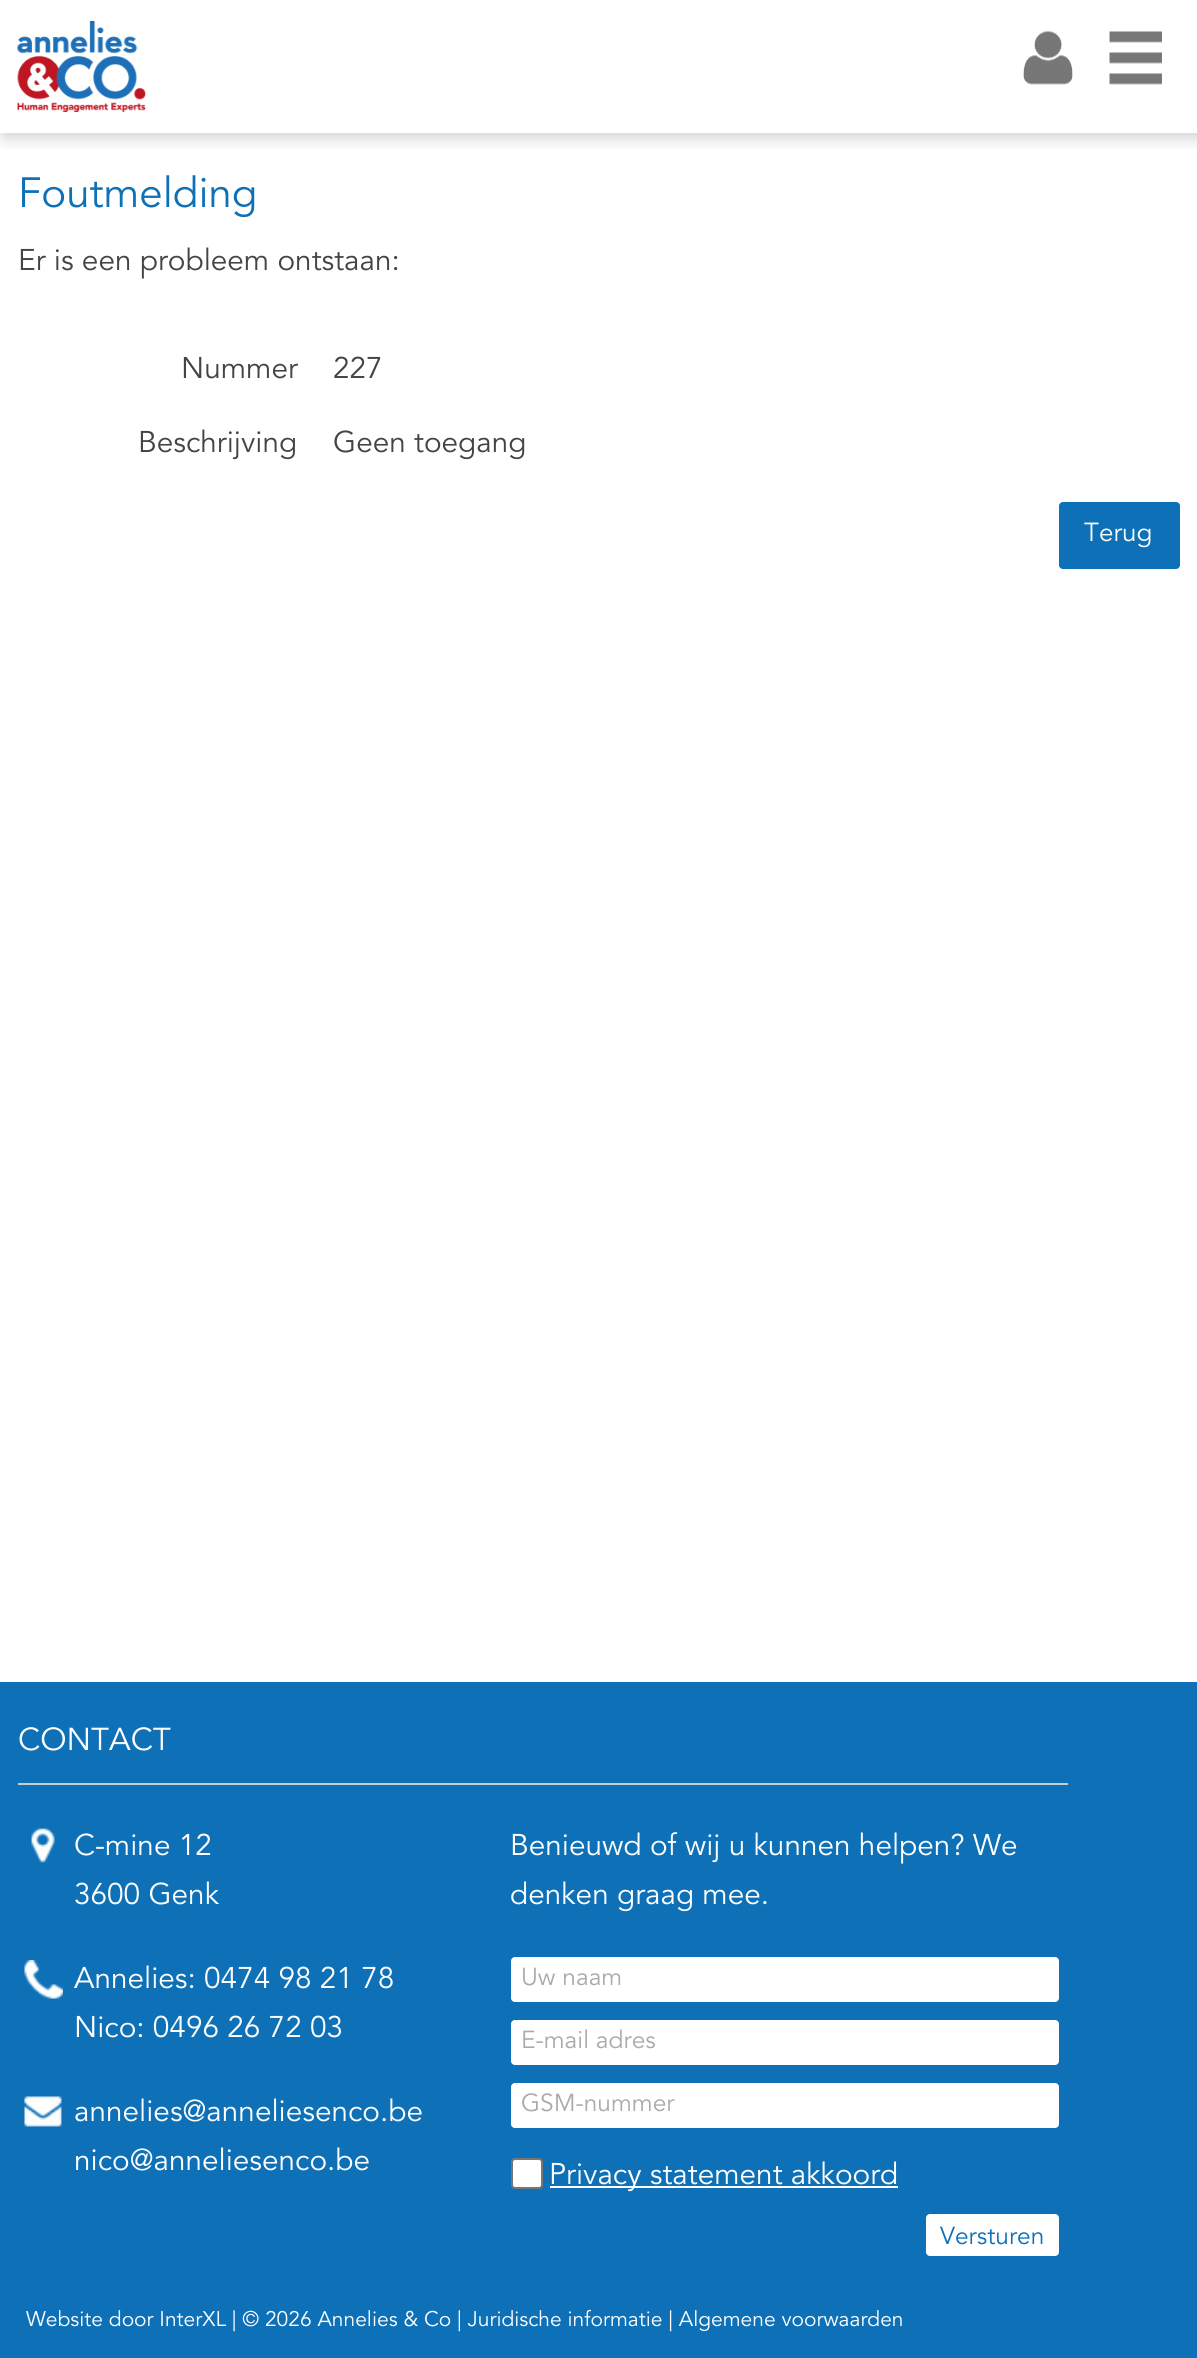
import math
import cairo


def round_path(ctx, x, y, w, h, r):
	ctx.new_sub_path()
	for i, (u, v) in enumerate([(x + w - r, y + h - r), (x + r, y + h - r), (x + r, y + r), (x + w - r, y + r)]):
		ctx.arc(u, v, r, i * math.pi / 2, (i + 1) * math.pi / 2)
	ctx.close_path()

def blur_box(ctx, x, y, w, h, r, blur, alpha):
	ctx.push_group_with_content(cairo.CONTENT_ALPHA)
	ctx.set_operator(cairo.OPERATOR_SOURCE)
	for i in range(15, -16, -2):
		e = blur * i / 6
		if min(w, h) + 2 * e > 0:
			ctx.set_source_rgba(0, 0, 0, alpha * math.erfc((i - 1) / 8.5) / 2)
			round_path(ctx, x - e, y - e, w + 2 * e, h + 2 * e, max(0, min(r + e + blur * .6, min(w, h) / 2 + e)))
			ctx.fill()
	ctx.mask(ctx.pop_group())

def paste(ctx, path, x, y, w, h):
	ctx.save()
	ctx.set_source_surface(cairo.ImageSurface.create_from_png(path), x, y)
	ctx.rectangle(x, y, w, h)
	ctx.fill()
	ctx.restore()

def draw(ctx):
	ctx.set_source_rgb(1, 1, 1)
	ctx.paint()
	ctx.save()
	ctx.rectangle(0, 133, 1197, 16)
	ctx.clip()
	ctx.set_source_rgb(0, 0, 0)
	blur_box(ctx, 4, 4, 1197, 133, 0, 9, 0.2)
	ctx.restore()
	paste(ctx, 'media/1.png', 17, 21, 129, 91)
	paste(ctx, 'media/2.png', 1023, 31, 50, 54)
	paste(ctx, 'media/3.png', 1109, 31, 53, 54)
	ctx.select_font_face('Avenir')
	ctx.set_font_size(42)
	ctx.set_source_rgb(0.055, 0.443, 0.722)
	ctx.move_to(18, 207)
	ctx.show_text('Foutmelding')
	ctx.set_font_size(29.75)
	ctx.set_source_rgb(0.267, 0.267, 0.267)
	for x, y, s in [
		(18, 270, 'Er is een probleem ontstaan:'),
		(181, 378, 'Nummer'),
		(333, 378, '227'),
		(138, 452, 'Beschrijving'),
		(333, 452, 'Geen toegang'),
	]:
		ctx.move_to(x, y)
		ctx.show_text(s)
	ctx.set_source_rgb(0.055, 0.443, 0.722)
	round_path(ctx, 1059, 502, 121, 67, 4)
	ctx.fill()
	ctx.set_font_size(26)
	ctx.set_source_rgb(1, 1, 1)
	ctx.move_to(1084, 541)
	ctx.show_text('Terug')
	ctx.set_source_rgb(0.055, 0.443, 0.722)
	ctx.rectangle(0, 1682, 1197, 676)
	ctx.fill()
	ctx.set_source_rgb(0.8, 0.8, 0.8)
	ctx.rectangle(18, 1783, 1050, 2)
	ctx.fill()
	ctx.set_font_size(31.5)
	ctx.set_source_rgb(1, 1, 1)
	ctx.move_to(18, 1750)
	ctx.show_text('CONTACT')
	paste(ctx, 'media/4.png', 31, 1828, 24, 35)
	ctx.set_font_size(29.75)
	ctx.move_to(74, 1855)
	ctx.show_text('C-mine 12')
	ctx.move_to(74, 1904)
	ctx.show_text('3600 Genk')
	paste(ctx, 'media/5.png', 24, 1960, 39, 39)
	ctx.move_to(74, 1988)
	ctx.show_text('Annelies: 0474 98 21 78')
	ctx.move_to(74, 2037)
	ctx.show_text('Nico: 0496 26 72 03')
	paste(ctx, 'media/6.png', 24, 2096, 38, 31)
	for x, y, s in [
		(74, 2121, 'annelies@anneliesenco.be'),
		(74, 2170, 'nico@anneliesenco.be'),
		(510, 1855, 'Benieuwd of wij u kunnen helpen? We'),
		(510, 1904, 'denken graag mee.'),
	]:
		ctx.move_to(x, y)
		ctx.show_text(s)
	round_path(ctx, 511, 1957, 548, 45, 4)
	ctx.fill()
	ctx.set_font_size(24.5)
	ctx.set_source_rgb(0.667, 0.667, 0.667)
	ctx.move_to(521, 1985)
	ctx.show_text('Uw naam')
	ctx.set_source_rgb(1, 1, 1)
	round_path(ctx, 511, 2020, 548, 45, 4)
	ctx.fill()
	ctx.set_source_rgb(0.667, 0.667, 0.667)
	ctx.move_to(521, 2048)
	ctx.show_text('E-mail adres')
	ctx.set_source_rgb(1, 1, 1)
	round_path(ctx, 511, 2083, 548, 45, 4)
	ctx.fill()
	ctx.set_source_rgb(0.667, 0.667, 0.667)
	ctx.move_to(521, 2111)
	ctx.show_text('GSM-nummer')
	ctx.set_source_rgb(1, 1, 1)
	round_path(ctx, 512, 2159, 30, 29, 3)
	ctx.fill_preserve()
	ctx.set_source_rgb(0.463, 0.463, 0.463)
	ctx.stroke()
	ctx.set_source_rgb(1, 1, 1)
	ctx.rectangle(550, 2186, 348, 2)
	ctx.fill()
	ctx.set_font_size(29.75)
	ctx.move_to(549, 2184)
	ctx.show_text('Privacy statement akkoord')
	round_path(ctx, 926, 2214, 133, 42, 4)
	ctx.fill()
	ctx.set_font_size(24.5)
	ctx.set_source_rgb(0.055, 0.443, 0.722)
	ctx.move_to(940, 2244)
	ctx.show_text('Versturen')
	ctx.set_font_size(21)
	ctx.set_source_rgb(1, 1, 1)
	ctx.move_to(26, 2326)
	ctx.show_text('Website door InterXL | © 2026 Annelies & Co | Juridische informatie | Algemene voorwaarden')


surface = cairo.ImageSurface(cairo.FORMAT_RGB24, 1197, 2358)
ctx = cairo.Context(surface)
options = cairo.FontOptions()
options.set_hint_metrics(cairo.HINT_METRICS_OFF)
options.set_hint_style(cairo.HINT_STYLE_NONE)
ctx.set_font_options(options)
ctx.set_miter_limit(4)
draw(ctx)
surface.write_to_png('image.png')
